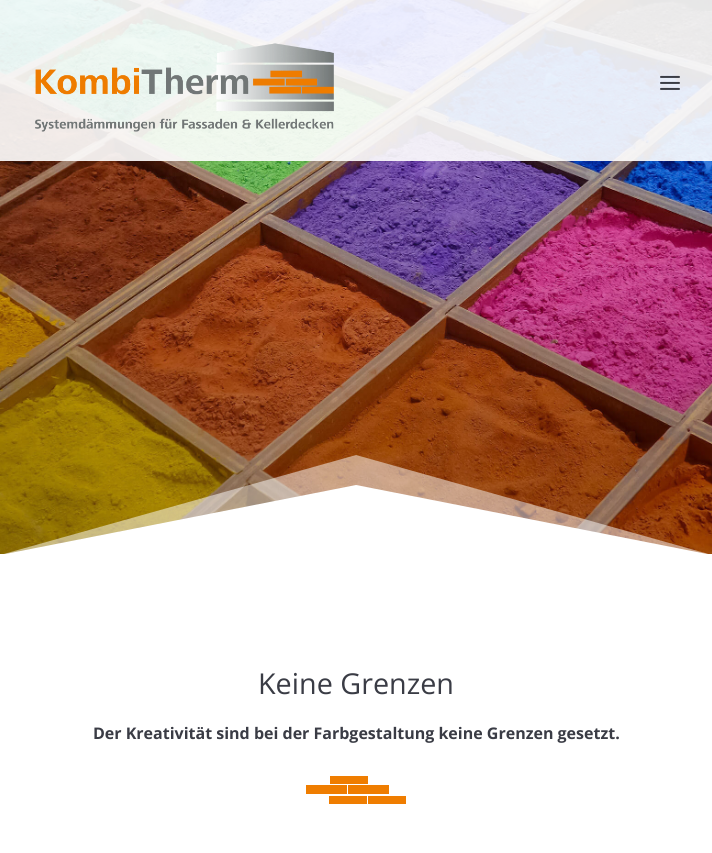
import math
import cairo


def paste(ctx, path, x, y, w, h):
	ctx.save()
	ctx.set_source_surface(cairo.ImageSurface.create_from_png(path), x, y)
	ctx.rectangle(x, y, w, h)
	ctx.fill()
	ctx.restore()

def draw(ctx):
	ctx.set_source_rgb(1, 1, 1)
	ctx.paint()
	paste(ctx, 'media/1.png', 0, 0, 712, 554)
	ctx.save()
	ctx.rectangle(0, 454, 712, 100)
	ctx.clip()
	ctx.set_source_rgba(1, 1, 1, 0.5)
	ctx.new_path()
	ctx.move_to(356, 455)
	ctx.line_to(712, 555)
	ctx.line_to(0, 555)
	ctx.close_path()
	ctx.fill()
	ctx.set_source_rgb(1, 1, 1)
	ctx.new_path()
	ctx.move_to(356, 485)
	ctx.line_to(712, 555)
	ctx.line_to(0, 555)
	ctx.close_path()
	ctx.fill()
	ctx.restore()
	ctx.set_source_rgba(1, 1, 1, 0.9)
	ctx.rectangle(0, 0, 712, 161)
	ctx.fill()
	paste(ctx, 'media/2.png', 35, 43, 299, 89)
	paste(ctx, 'media/3.png', 660, 75, 20, 15)
	ctx.select_font_face('Open Sans')
	ctx.set_font_size(28.75)
	ctx.set_source_rgb(0.227, 0.235, 0.271)
	ctx.move_to(258, 694)
	ctx.show_text('Keine Grenzen')
	ctx.select_font_face('Open Sans', cairo.FONT_SLANT_NORMAL, cairo.FONT_WEIGHT_BOLD)
	ctx.set_font_size(16)
	ctx.move_to(93, 739)
	ctx.show_text('Der Kreativität sind bei der Farbgestaltung keine Grenzen gesetzt.')
	ctx.set_source_rgb(0.937, 0.49, 0)
	ctx.new_path()
	ctx.move_to(330, 776)
	ctx.line_to(368, 776)
	ctx.line_to(368, 784)
	ctx.line_to(330, 784)
	ctx.close_path()
	ctx.move_to(306, 794)
	ctx.line_to(347, 794)
	ctx.line_to(347, 785)
	ctx.line_to(306, 785)
	ctx.close_path()
	ctx.move_to(348, 794)
	ctx.line_to(389, 794)
	ctx.line_to(389, 785)
	ctx.line_to(348, 785)
	ctx.close_path()
	ctx.move_to(329, 804)
	ctx.line_to(367, 804)
	ctx.line_to(367, 796)
	ctx.line_to(329, 796)
	ctx.close_path()
	ctx.fill()
	ctx.rectangle(368, 796, 38, 8)
	ctx.fill()


surface = cairo.ImageSurface(cairo.FORMAT_RGB24, 712, 853)
ctx = cairo.Context(surface)
options = cairo.FontOptions()
options.set_hint_metrics(cairo.HINT_METRICS_OFF)
options.set_hint_style(cairo.HINT_STYLE_NONE)
ctx.set_font_options(options)
ctx.set_miter_limit(4)
draw(ctx)
surface.write_to_png('image.png')
